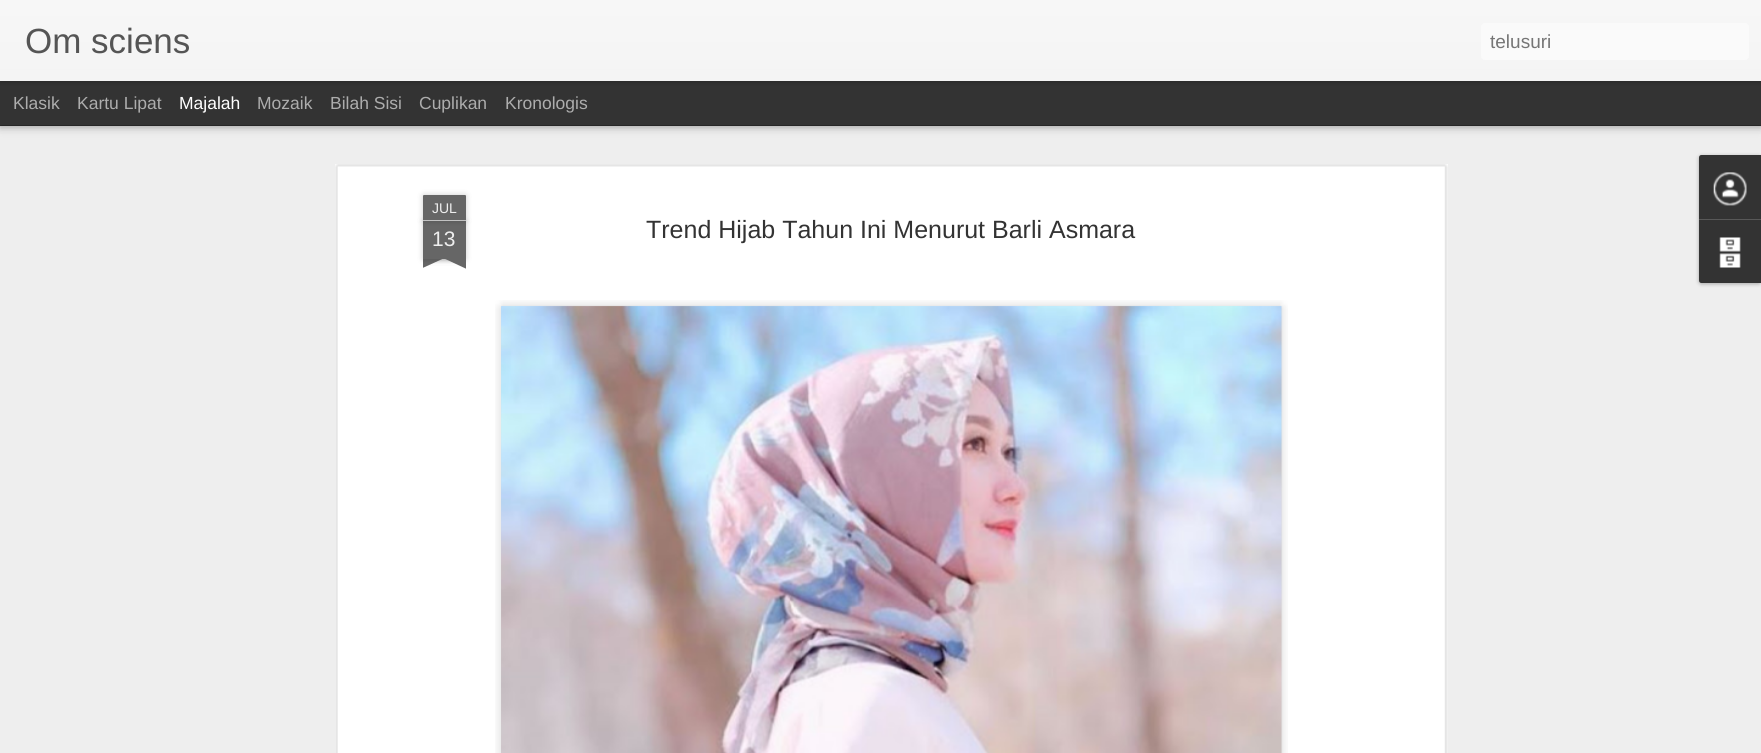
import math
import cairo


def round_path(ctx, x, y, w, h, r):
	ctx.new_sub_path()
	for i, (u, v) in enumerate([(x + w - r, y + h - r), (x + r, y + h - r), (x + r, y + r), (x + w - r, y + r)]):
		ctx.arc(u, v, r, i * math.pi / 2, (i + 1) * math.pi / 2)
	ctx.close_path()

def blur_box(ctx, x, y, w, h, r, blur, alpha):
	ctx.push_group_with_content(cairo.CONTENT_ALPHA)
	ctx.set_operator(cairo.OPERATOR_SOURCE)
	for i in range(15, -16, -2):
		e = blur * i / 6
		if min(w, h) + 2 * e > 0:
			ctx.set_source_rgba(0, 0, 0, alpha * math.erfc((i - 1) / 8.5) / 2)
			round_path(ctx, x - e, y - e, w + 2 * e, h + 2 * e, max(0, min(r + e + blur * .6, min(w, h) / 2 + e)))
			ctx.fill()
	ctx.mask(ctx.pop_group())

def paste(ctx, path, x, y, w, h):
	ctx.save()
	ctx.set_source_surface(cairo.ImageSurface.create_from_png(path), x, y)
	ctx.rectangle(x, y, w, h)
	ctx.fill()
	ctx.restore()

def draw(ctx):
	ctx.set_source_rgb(0.2, 0.2, 0.2)
	ctx.paint()
	ctx.set_source_rgb(0.933, 0.933, 0.933)
	ctx.rectangle(0, 126, 1761, 627)
	ctx.fill()
	ctx.set_source_rgb(0, 0, 0)
	blur_box(ctx, 0, 81, 1761, 44, 0, 5, 0.5)
	ctx.set_source_rgb(0.2, 0.2, 0.2)
	ctx.rectangle(0, 81, 1761, 44)
	ctx.fill()
	ctx.set_source_rgb(0, 0, 0)
	blur_box(ctx, 0, 0, 1761, 81, 0, 3, 0.3)
	gradient = cairo.LinearGradient(0, 0, 0, 81)
	gradient.add_color_stop_rgba(0, 0.969, 0.969, 0.969, 1)
	gradient.add_color_stop_rgba(1, 0.957, 0.957, 0.957, 1)
	ctx.set_source(gradient)
	ctx.rectangle(0, 0, 1761, 81)
	ctx.fill()
	ctx.select_font_face('Liberation Sans')
	ctx.set_font_size(35)
	ctx.set_source_rgb(0.333, 0.333, 0.333)
	ctx.move_to(25, 53)
	ctx.show_text('Om sciens')
	ctx.set_source_rgb(0.98, 0.98, 0.98)
	round_path(ctx, 1481, 23, 268, 37, 4)
	ctx.fill()
	ctx.set_font_size(19)
	ctx.set_source_rgb(0.459, 0.459, 0.459)
	ctx.move_to(1490, 48)
	ctx.show_text('telusuri')
	ctx.set_font_size(17.5)
	ctx.set_source_rgb(0.678, 0.678, 0.678)
	ctx.move_to(13, 109)
	ctx.show_text('Klasik')
	ctx.move_to(77, 109)
	ctx.show_text('Kartu Lipat')
	ctx.set_source_rgb(1, 1, 1)
	ctx.move_to(179, 109)
	ctx.show_text('Majalah')
	ctx.set_source_rgb(0.678, 0.678, 0.678)
	for x, y, s in [
		(257, 109, 'Mozaik'),
		(330, 109, 'Bilah Sisi'),
		(419, 109, 'Cuplikan'),
		(505, 109, 'Kronologis'),
	]:
		ctx.move_to(x, y)
		ctx.show_text(s)
	ctx.set_source_rgb(1, 1, 1)
	ctx.rectangle(335, 164, 1113, 589)
	ctx.fill()
	paste(ctx, 'media/1.png', 335, 164, 1113, 589)
	ctx.set_source_rgb(0, 0, 0)
	blur_box(ctx, 423, 221, 43, 38, 0, 3, 0.2)
	ctx.set_source_rgb(0.4, 0.4, 0.4)
	ctx.rectangle(423, 221, 43, 38)
	ctx.fill()
	ctx.set_source_rgb(0, 0, 0)
	blur_box(ctx, 423, 195, 43, 26, 1, 3, 0.2)
	ctx.set_source_rgb(0.4, 0.4, 0.4)
	ctx.new_path()
	ctx.move_to(424, 195)
	ctx.line_to(465, 195)
	ctx.curve_to(465.5, 195, 466, 195.5, 466, 196)
	ctx.line_to(466, 221)
	ctx.line_to(423, 221)
	ctx.line_to(423, 196)
	ctx.curve_to(423, 195.5, 423.5, 195, 424, 195)
	ctx.close_path()
	ctx.fill()
	ctx.set_source_rgb(0.761, 0.761, 0.761)
	ctx.rectangle(423, 220, 43, 1)
	ctx.fill()
	ctx.set_font_size(14)
	ctx.set_source_rgb(0.933, 0.933, 0.933)
	ctx.move_to(432, 213)
	ctx.show_text('JUL')
	ctx.set_font_size(21)
	ctx.move_to(432, 246)
	ctx.show_text('13')
	ctx.save()
	ctx.rectangle(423, 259, 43, 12)
	ctx.clip()
	ctx.set_source_rgb(0, 0, 0)
	blur_box(ctx, 411, 246, 63, 13, 0, 3, 0.2)
	ctx.restore()
	ctx.save()
	ctx.rectangle(423, 259, 43, 12)
	ctx.clip()
	ctx.set_source_rgb(0.4, 0.4, 0.4)
	ctx.new_path()
	ctx.move_to(411, 260)
	ctx.line_to(468, 234)
	ctx.line_to(473, 245)
	ctx.line_to(416, 271)
	ctx.close_path()
	ctx.fill()
	ctx.restore()
	ctx.save()
	ctx.rectangle(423, 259, 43, 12)
	ctx.clip()
	ctx.set_source_rgb(0, 0, 0)
	blur_box(ctx, 415, 246, 63, 13, 0, 3, 0.2)
	ctx.restore()
	ctx.save()
	ctx.rectangle(423, 259, 43, 12)
	ctx.clip()
	ctx.set_source_rgb(0.4, 0.4, 0.4)
	ctx.new_path()
	ctx.move_to(420, 234)
	ctx.line_to(477, 260)
	ctx.line_to(471, 271)
	ctx.line_to(415, 245)
	ctx.close_path()
	ctx.fill()
	ctx.restore()
	ctx.set_font_size(25)
	ctx.set_source_rgb(0.2, 0.2, 0.2)
	ctx.move_to(646, 238)
	ctx.show_text('Trend Hijab Tahun Ini Menurut Barli Asmara')
	paste(ctx, 'media/2.png', 495, 300, 793, 453)
	paste(ctx, 'media/3.png', 501, 305, 782, 448)
	ctx.set_source_rgb(0, 0, 0)
	blur_box(ctx, 1699, 156, 62, 128, 2.5, 2, 0.3)
	ctx.set_source_rgb(0.2, 0.2, 0.2)
	ctx.new_path()
	ctx.move_to(1701.5, 155)
	ctx.line_to(1761, 155)
	ctx.line_to(1761, 219)
	ctx.line_to(1699, 219)
	ctx.line_to(1699, 157.5)
	ctx.curve_to(1699, 156, 1700, 155, 1701.5, 155)
	ctx.close_path()
	ctx.fill()
	paste(ctx, 'media/4.png', 1713, 172, 34, 34)
	ctx.new_path()
	ctx.move_to(1699, 219)
	ctx.line_to(1761, 219)
	ctx.line_to(1761, 283)
	ctx.line_to(1701.5, 283)
	ctx.curve_to(1700, 283, 1699, 282, 1699, 280.5)
	ctx.close_path()
	ctx.fill()
	ctx.set_source_rgb(0.345, 0.345, 0.345)
	ctx.rectangle(1699, 219, 62, 1)
	ctx.fill()
	paste(ctx, 'media/5.png', 1719, 237, 22, 31)


surface = cairo.ImageSurface(cairo.FORMAT_RGB24, 1761, 753)
ctx = cairo.Context(surface)
options = cairo.FontOptions()
options.set_hint_metrics(cairo.HINT_METRICS_OFF)
options.set_hint_style(cairo.HINT_STYLE_NONE)
ctx.set_font_options(options)
ctx.set_miter_limit(4)
draw(ctx)
surface.write_to_png('image.png')
